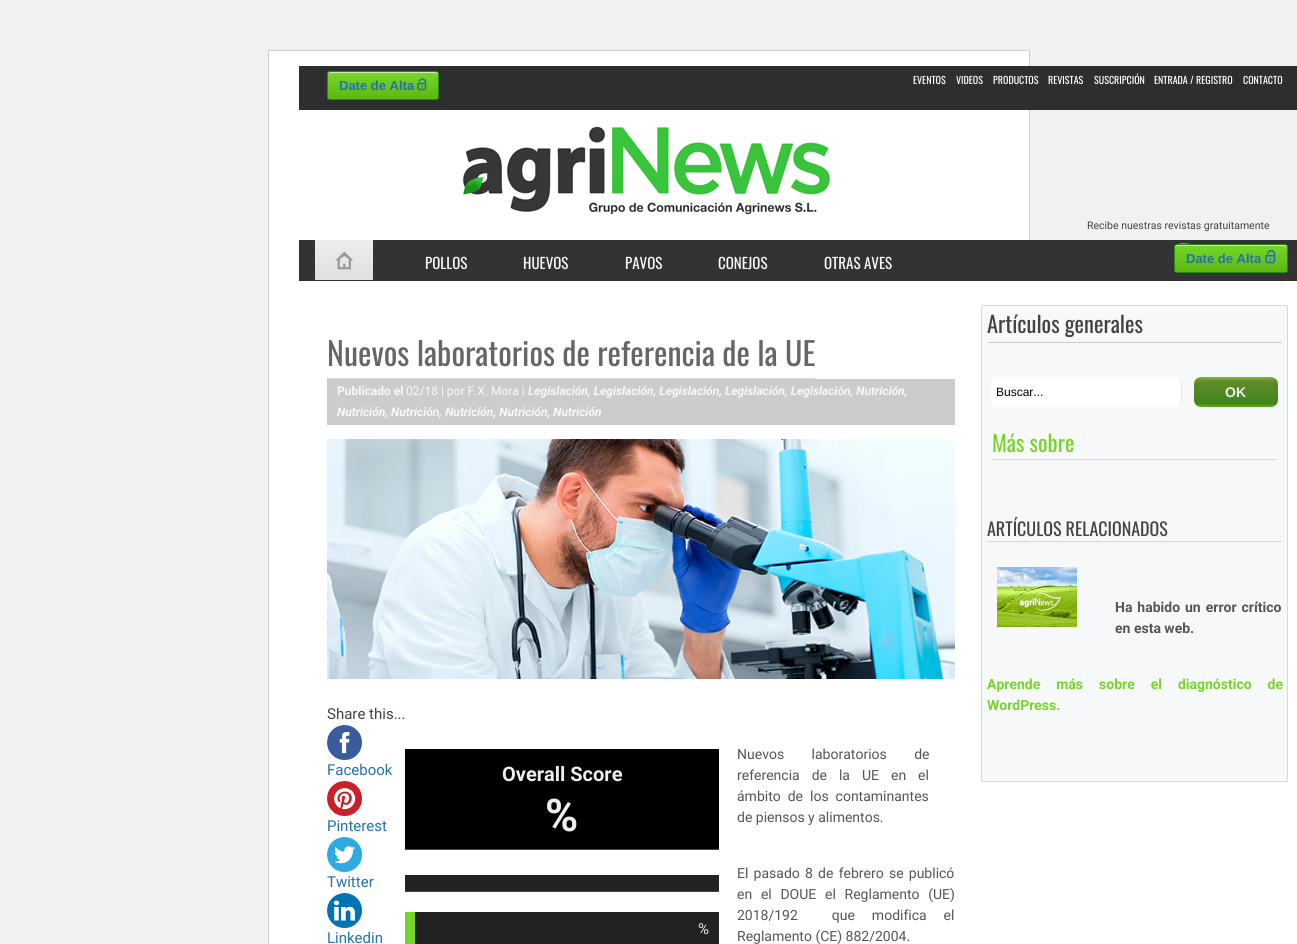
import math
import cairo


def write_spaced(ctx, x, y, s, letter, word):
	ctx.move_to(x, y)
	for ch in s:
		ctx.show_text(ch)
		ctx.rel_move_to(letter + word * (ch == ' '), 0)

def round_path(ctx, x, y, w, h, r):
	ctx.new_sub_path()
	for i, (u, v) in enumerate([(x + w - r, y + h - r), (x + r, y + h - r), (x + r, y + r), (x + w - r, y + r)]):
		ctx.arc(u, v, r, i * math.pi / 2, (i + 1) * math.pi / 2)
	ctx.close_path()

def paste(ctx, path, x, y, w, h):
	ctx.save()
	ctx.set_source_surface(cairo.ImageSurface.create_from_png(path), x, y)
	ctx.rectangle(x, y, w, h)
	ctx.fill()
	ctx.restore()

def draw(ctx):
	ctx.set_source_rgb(0.945, 0.945, 0.945)
	ctx.paint()
	ctx.set_source_rgb(1, 1, 1)
	ctx.rectangle(268.5, 50.5, 761, 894)
	ctx.fill_preserve()
	ctx.set_source_rgb(0.8, 0.816, 0.831)
	ctx.set_line_width(1)
	ctx.stroke()
	ctx.set_source_rgb(0.176, 0.184, 0.184)
	ctx.rectangle(299, 66, 998, 44)
	ctx.fill()
	ctx.save()
	round_path(ctx, 327, 71, 112, 29, 3)
	ctx.clip()
	gradient = cairo.LinearGradient(328, 72, 328, 99)
	gradient.add_color_stop_rgba(0.05, 0.467, 0.831, 0.165, 1)
	gradient.add_color_stop_rgba(1, 0.361, 0.722, 0.067, 1)
	ctx.set_source(gradient)
	ctx.rectangle(327, 72, 112, 27)
	ctx.fill()
	ctx.restore()
	ctx.set_source_rgb(0.792, 0.937, 0.671)
	ctx.new_path()
	ctx.move_to(330, 73)
	ctx.line_to(436, 73)
	ctx.curve_to(437, 73, 438, 74, 438, 75)
	ctx.curve_to(438, 74, 438, 72, 436, 72)
	ctx.line_to(330, 72)
	ctx.curve_to(328, 72, 328, 74, 328, 75)
	ctx.curve_to(328, 74, 329, 73, 330, 73)
	ctx.close_path()
	ctx.fill()
	round_path(ctx, 327.5, 71.5, 111, 28, 2.5)
	ctx.set_source_rgb(0.149, 0.541, 0.086)
	ctx.stroke()
	ctx.select_font_face('Liberation Sans', cairo.FONT_SLANT_NORMAL, cairo.FONT_WEIGHT_BOLD)
	ctx.set_font_size(13)
	ctx.set_source_rgb(0.133, 0.443, 0.694)
	ctx.move_to(339, 90)
	ctx.show_text('Date de Alta')
	paste(ctx, 'media/1.png', 417, 78, 10, 13)
	ctx.select_font_face('Oswald')
	ctx.set_font_size(10)
	ctx.set_source_rgb(1, 1, 1)
	for x, y, s in [
		(913, 84, 'EVENTOS'),
		(956, 84, 'VIDEOS'),
		(993, 84, 'PRODUCTOS'),
		(1048, 84, 'REVISTAS'),
		(1094, 84, 'SUSCRIPCIÓN'),
		(1154, 84, 'ENTRADA / REGISTRO'),
		(1243, 84, 'CONTACTO'),
	]:
		ctx.move_to(x, y)
		ctx.show_text(s)
	paste(ctx, 'media/2.png', 460, 126, 376, 89)
	ctx.set_source_rgb(0.176, 0.184, 0.184)
	ctx.rectangle(299, 280, 998, 1)
	ctx.fill()
	ctx.select_font_face('Roboto')
	ctx.set_font_size(10.5)
	ctx.set_source_rgb(0.267, 0.267, 0.267)
	ctx.move_to(1087, 229)
	ctx.show_text('Recibe nuestras revistas gratuitamente')
	ctx.set_source_rgb(0.2, 0.2, 0.2)
	ctx.rectangle(299, 240, 998, 40)
	ctx.fill()
	gradient = cairo.LinearGradient(315, 240, 315, 281)
	gradient.add_color_stop_rgba(0.05, 0.929, 0.929, 0.929, 1)
	gradient.add_color_stop_rgba(1, 0.875, 0.875, 0.875, 1)
	ctx.set_source(gradient)
	ctx.rectangle(315, 240, 58, 40)
	ctx.fill()
	paste(ctx, 'media/3.png', 335, 251, 18, 19)
	ctx.select_font_face('Oswald')
	ctx.set_font_size(15)
	ctx.set_source_rgb(0.965, 0.969, 0.973)
	for x, y, s in [
		(425, 269, 'POLLOS'),
		(523, 269, 'HUEVOS'),
		(625, 269, 'PAVOS'),
		(718, 269, 'CONEJOS'),
		(824, 269, 'OTRAS AVES'),
	]:
		ctx.move_to(x, y)
		ctx.show_text(s)
	ctx.save()
	round_path(ctx, 1174, 244, 114, 29, 3)
	ctx.clip()
	gradient = cairo.LinearGradient(1175, 245, 1175, 272)
	gradient.add_color_stop_rgba(0.05, 0.467, 0.831, 0.165, 1)
	gradient.add_color_stop_rgba(1, 0.361, 0.722, 0.067, 1)
	ctx.set_source(gradient)
	ctx.rectangle(1174, 245, 114, 27)
	ctx.fill()
	ctx.restore()
	ctx.set_source_rgb(0.792, 0.937, 0.671)
	ctx.new_path()
	ctx.move_to(1177, 246)
	ctx.line_to(1285, 246)
	ctx.curve_to(1286, 246, 1287, 247, 1287, 248)
	ctx.curve_to(1287, 247, 1287, 245, 1285, 245)
	ctx.line_to(1195, 245)
	ctx.curve_to(1195, 245, 1175, 240, 1175, 248)
	ctx.curve_to(1175, 247, 1176, 246, 1177, 246)
	ctx.close_path()
	ctx.fill()
	round_path(ctx, 1174.5, 244.5, 113, 28, 2.5)
	ctx.set_source_rgb(0.149, 0.541, 0.086)
	ctx.stroke()
	ctx.select_font_face('Liberation Sans', cairo.FONT_SLANT_NORMAL, cairo.FONT_WEIGHT_BOLD)
	ctx.set_font_size(13)
	ctx.set_source_rgb(0.133, 0.443, 0.694)
	ctx.move_to(1186, 263)
	ctx.show_text('Date de Alta')
	paste(ctx, 'media/4.png', 1265, 249, 11, 15)
	ctx.set_source_rgb(1, 1, 1)
	ctx.rectangle(1029, 281, 268, 663)
	ctx.fill()
	ctx.set_source_rgb(0.855, 0.855, 0.855)
	ctx.rectangle(327, 378, 488, 1)
	ctx.fill()
	ctx.select_font_face('Oswald')
	ctx.set_font_size(32)
	ctx.set_source_rgb(0.4, 0.4, 0.4)
	ctx.move_to(327, 366)
	ctx.show_text('Nuevos laboratorios de referencia de la UE')
	ctx.set_source_rgb(0.8, 0.8, 0.8)
	ctx.rectangle(327, 379, 628, 46)
	ctx.fill()
	ctx.select_font_face('Roboto', cairo.FONT_SLANT_NORMAL, cairo.FONT_WEIGHT_BOLD)
	ctx.set_font_size(12)
	ctx.set_source_rgb(0.965, 0.969, 0.973)
	ctx.move_to(337, 395)
	ctx.show_text('Publicado el')
	ctx.select_font_face('Roboto')
	ctx.move_to(406, 395)
	ctx.show_text('02/18 | por F.X. Mora |')
	ctx.select_font_face('Roboto', cairo.FONT_SLANT_ITALIC, cairo.FONT_WEIGHT_BOLD)
	ctx.move_to(528, 395)
	ctx.show_text('Legislación, Legislación, Legislación, Legislación, Legislación, Nutrición,')
	ctx.move_to(337, 416)
	ctx.show_text('Nutrición, Nutrición, Nutrición, Nutrición, Nutrición')
	paste(ctx, 'media/5.png', 327, 439, 628, 240)
	ctx.select_font_face('Roboto')
	ctx.set_font_size(15)
	ctx.set_source_rgb(0.267, 0.267, 0.267)
	ctx.move_to(327, 719)
	ctx.show_text('Share this...')
	paste(ctx, 'media/6.png', 327, 725, 35, 35)
	ctx.set_source_rgb(0.133, 0.443, 0.694)
	ctx.move_to(327, 775)
	ctx.show_text('Facebook')
	paste(ctx, 'media/7.png', 327, 781, 35, 35)
	ctx.move_to(327, 831)
	ctx.show_text('Pinterest')
	paste(ctx, 'media/8.png', 327, 837, 35, 35)
	ctx.move_to(327, 887)
	ctx.show_text('Twitter')
	paste(ctx, 'media/9.png', 327, 893, 35, 35)
	ctx.move_to(327, 943)
	ctx.show_text('Linkedin')
	ctx.set_source_rgb(0, 0, 0)
	ctx.rectangle(405, 749, 314, 100)
	ctx.fill()
	ctx.set_source_rgb(0.267, 0.267, 0.267)
	ctx.rectangle(405, 849, 314, 1)
	ctx.fill()
	ctx.select_font_face('Roboto', cairo.FONT_SLANT_NORMAL, cairo.FONT_WEIGHT_BOLD)
	ctx.set_font_size(20)
	ctx.set_source_rgb(0.933, 0.933, 0.933)
	ctx.move_to(502, 781)
	ctx.show_text('Overall Score')
	ctx.set_font_size(45)
	ctx.move_to(545, 831)
	ctx.show_text('%')
	ctx.set_source_rgb(0.133, 0.133, 0.133)
	ctx.rectangle(405, 875, 314, 16)
	ctx.fill()
	ctx.set_source_rgb(0.267, 0.267, 0.267)
	ctx.rectangle(405, 891, 314, 1)
	ctx.fill()
	ctx.set_source_rgb(0.133, 0.133, 0.133)
	ctx.rectangle(415, 912, 304, 32)
	ctx.fill()
	ctx.set_source_rgb(0.467, 0.831, 0.165)
	ctx.rectangle(405, 912, 10, 32)
	ctx.fill()
	ctx.select_font_face('Roboto')
	ctx.set_font_size(15)
	ctx.set_source_rgb(0.933, 0.933, 0.933)
	ctx.move_to(698, 934)
	ctx.show_text('%')
	ctx.set_font_size(14)
	ctx.set_source_rgb(0.333, 0.333, 0.333)
	write_spaced(ctx, 737, 759, 'Nuevos laboratorios de', 0, 24)
	write_spaced(ctx, 737, 780, 'referencia de la UE en el', 0, 8.5)
	write_spaced(ctx, 737, 801, 'ámbito de los contaminantes', 0, 3.5)
	ctx.move_to(737, 822)
	ctx.show_text('de piensos y alimentos.')
	write_spaced(ctx, 737, 878, 'El pasado 8 de febrero se publicó', 0, 1.75)
	write_spaced(ctx, 737, 899, 'en el DOUE el Reglamento (UE)', 0, 5.25)
	write_spaced(ctx, 737, 920, '2018/192  que modifica el', 0, 13.5)
	ctx.move_to(737, 941)
	ctx.show_text('Reglamento (CE) 882/2004.')
	ctx.set_source_rgb(0.965, 0.969, 0.973)
	round_path(ctx, 981.5, 305.5, 306, 476, 1.5)
	ctx.fill_preserve()
	ctx.set_source_rgb(0.847, 0.847, 0.847)
	ctx.stroke()
	ctx.set_source_rgb(0.8, 0.8, 0.8)
	ctx.rectangle(987, 342, 295, 1)
	ctx.fill()
	ctx.select_font_face('Oswald')
	ctx.set_font_size(22.5)
	ctx.set_source_rgb(0.267, 0.267, 0.267)
	ctx.move_to(987, 333)
	ctx.show_text('Artículos generales')
	ctx.set_source_rgb(1, 1, 1)
	round_path(ctx, 991, 377, 191, 31, 7)
	ctx.fill()
	ctx.set_source_rgba(0.902, 0.902, 0.902, 0.8)
	ctx.new_path()
	ctx.move_to(1182, 384)
	ctx.line_to(1182, 401)
	ctx.curve_to(1182, 403, 1181, 405, 1180, 406)
	ctx.line_to(1179, 405)
	ctx.curve_to(1180, 404, 1181, 402.5, 1181, 401)
	ctx.line_to(1181, 384)
	ctx.curve_to(1181, 380, 1178, 377, 1175, 377)
	ctx.curve_to(1179, 377, 1182, 380, 1182, 384)
	ctx.close_path()
	ctx.fill()
	ctx.set_source_rgb(0.965, 0.969, 0.973)
	ctx.new_path()
	ctx.move_to(1180, 406)
	ctx.line_to(1179, 405)
	ctx.line_to(1176, 407)
	ctx.line_to(998, 407)
	ctx.curve_to(995, 407, 991, 405, 991, 401)
	ctx.curve_to(991, 405, 994, 408, 998, 408)
	ctx.line_to(1175, 408)
	ctx.curve_to(1177, 408, 1179, 407, 1180, 406)
	ctx.close_path()
	ctx.fill()
	ctx.select_font_face('Liberation Sans')
	ctx.set_font_size(12)
	ctx.set_source_rgb(0, 0, 0)
	ctx.move_to(996, 396)
	ctx.show_text('Buscar...')
	gradient = cairo.LinearGradient(1194, 377, 1194, 407)
	gradient.add_color_stop_rgba(0, 0.514, 0.718, 0.224, 1)
	gradient.add_color_stop_rgba(0.15, 0.388, 0.541, 0.165, 1)
	gradient.add_color_stop_rgba(0.88, 0.243, 0.529, 0.11, 1)
	gradient.add_color_stop_rgba(1, 0.42, 0.675, 0.055, 1)
	ctx.set_source(gradient)
	round_path(ctx, 1194, 377, 84, 30, 7)
	ctx.fill()
	ctx.select_font_face('Liberation Sans', cairo.FONT_SLANT_NORMAL, cairo.FONT_WEIGHT_BOLD)
	ctx.set_font_size(14)
	ctx.set_source_rgb(0.933, 0.933, 0.933)
	ctx.move_to(1225, 397)
	ctx.show_text('OK')
	ctx.set_source_rgb(0.847, 0.847, 0.847)
	ctx.rectangle(992, 459, 285, 1)
	ctx.fill()
	ctx.select_font_face('Oswald')
	ctx.set_font_size(22.5)
	ctx.set_source_rgb(0.467, 0.831, 0.165)
	ctx.move_to(992, 452)
	ctx.show_text('Más sobre')
	ctx.set_source_rgb(0.847, 0.847, 0.847)
	ctx.rectangle(987, 541, 295, 1)
	ctx.fill()
	ctx.set_font_size(18)
	ctx.set_source_rgb(0.267, 0.267, 0.267)
	ctx.move_to(987, 536)
	ctx.show_text('ARTÍCULOS RELACIONADOS')
	paste(ctx, 'media/10.png', 997, 567, 80, 60)
	ctx.select_font_face('Roboto', cairo.FONT_SLANT_NORMAL, cairo.FONT_WEIGHT_BOLD)
	ctx.set_font_size(14)
	ctx.set_source_rgb(0.333, 0.333, 0.333)
	write_spaced(ctx, 1115, 612, 'Ha habido un error crítico', 0, 1.5)
	ctx.move_to(1115, 633)
	ctx.show_text('en esta web.')
	ctx.set_source_rgb(0.467, 0.831, 0.165)
	write_spaced(ctx, 987, 689, 'Aprende más sobre el diagnóstico de', 0, 12.5)
	ctx.move_to(987, 710)
	ctx.show_text('WordPress.')


surface = cairo.ImageSurface(cairo.FORMAT_RGB24, 1297, 944)
ctx = cairo.Context(surface)
options = cairo.FontOptions()
options.set_hint_metrics(cairo.HINT_METRICS_OFF)
options.set_hint_style(cairo.HINT_STYLE_NONE)
ctx.set_font_options(options)
ctx.set_miter_limit(4)
draw(ctx)
surface.write_to_png('image.png')
